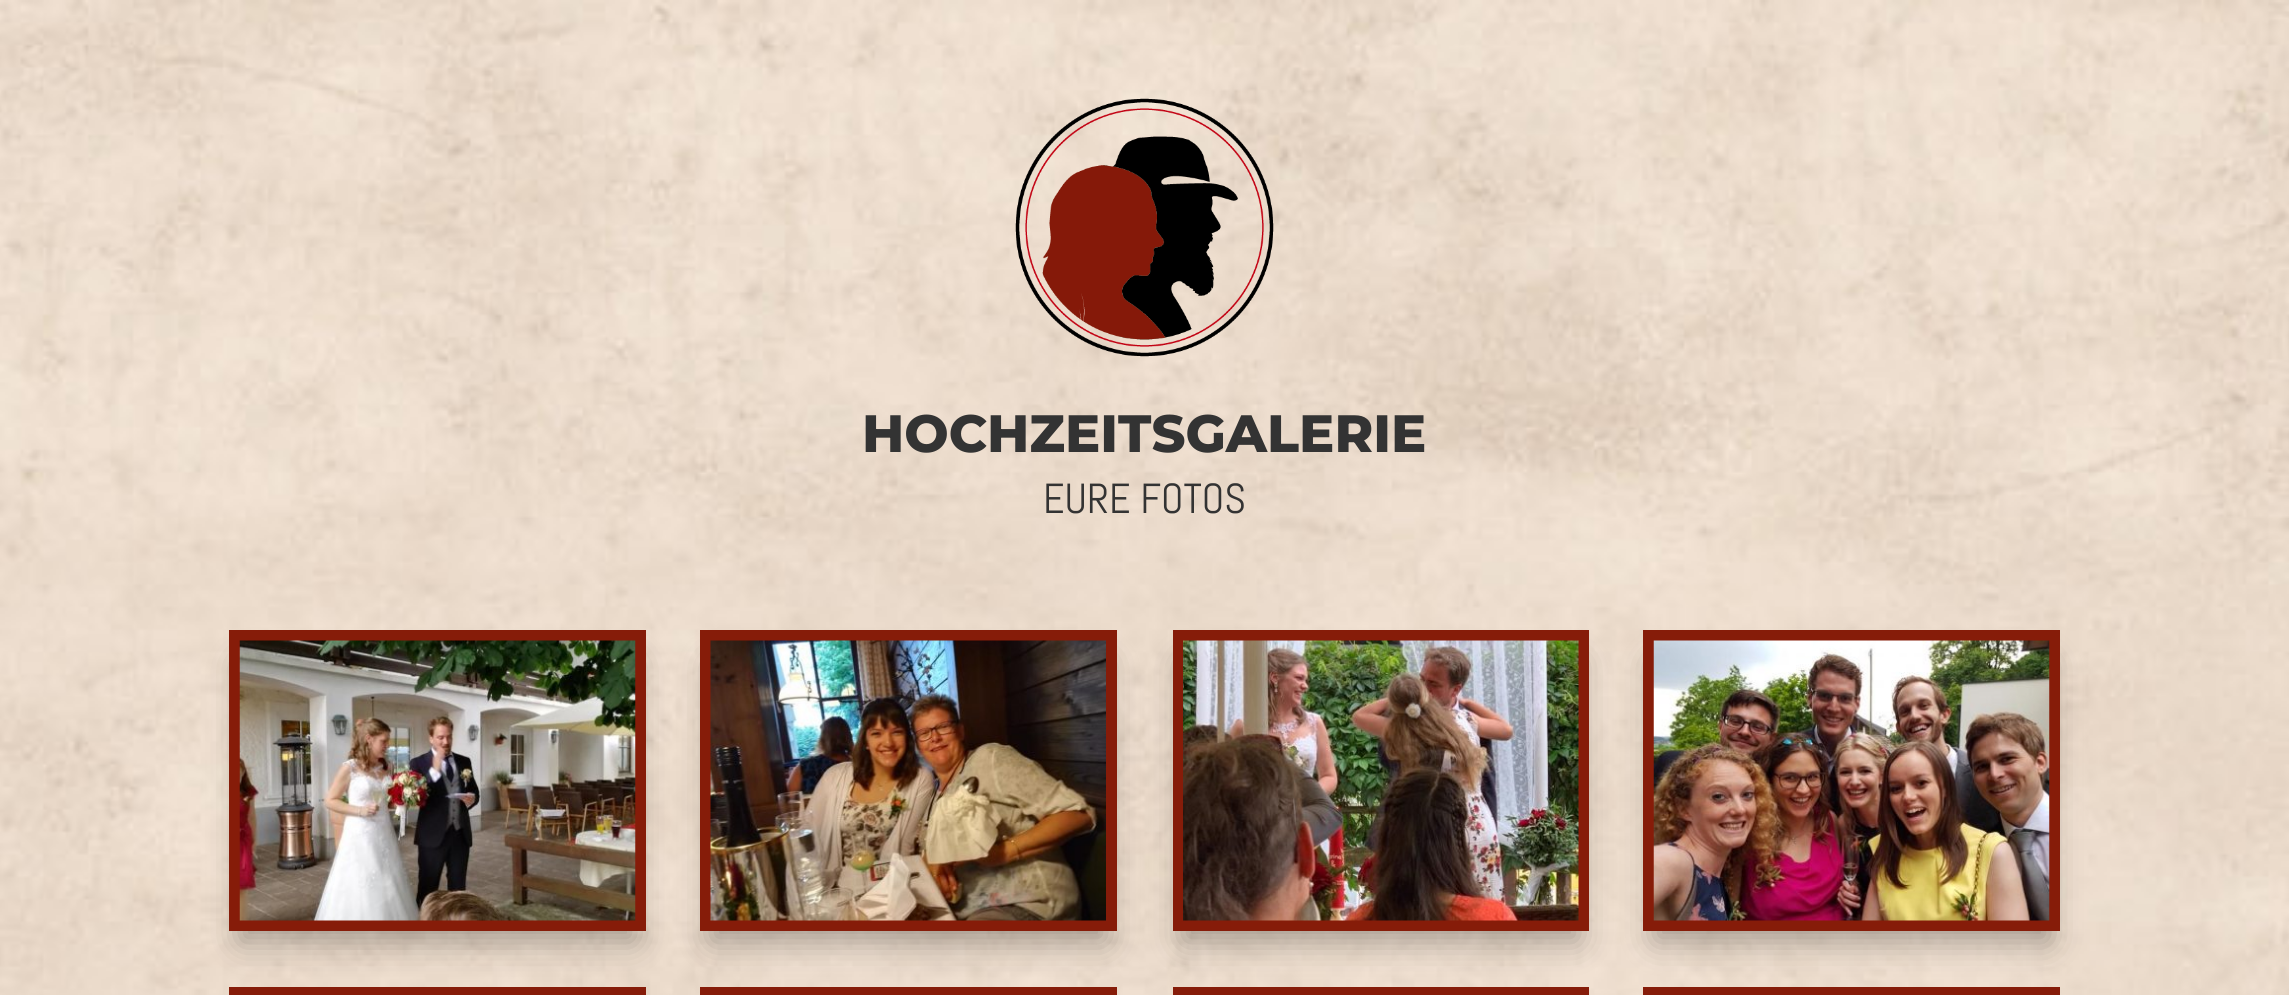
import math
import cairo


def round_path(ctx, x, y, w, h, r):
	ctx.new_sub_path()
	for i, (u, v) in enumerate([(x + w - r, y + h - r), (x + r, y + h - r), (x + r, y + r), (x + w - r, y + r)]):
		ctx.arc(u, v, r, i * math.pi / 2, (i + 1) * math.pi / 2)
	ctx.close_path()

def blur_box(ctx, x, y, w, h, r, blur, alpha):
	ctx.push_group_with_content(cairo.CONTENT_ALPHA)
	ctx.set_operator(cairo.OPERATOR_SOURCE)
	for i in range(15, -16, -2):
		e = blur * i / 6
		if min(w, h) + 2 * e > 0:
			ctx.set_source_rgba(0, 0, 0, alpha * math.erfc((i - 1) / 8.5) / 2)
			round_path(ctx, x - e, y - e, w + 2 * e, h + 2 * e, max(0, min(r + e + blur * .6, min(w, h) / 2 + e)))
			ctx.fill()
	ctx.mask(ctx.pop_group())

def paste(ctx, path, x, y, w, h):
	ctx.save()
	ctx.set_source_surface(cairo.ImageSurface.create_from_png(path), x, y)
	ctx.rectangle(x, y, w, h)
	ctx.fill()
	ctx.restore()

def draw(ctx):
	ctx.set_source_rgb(1, 1, 1)
	ctx.paint()
	paste(ctx, 'media/1.png', 0, 0, 2289, 995)
	paste(ctx, 'media/2.png', 1015, 98, 259, 259)
	ctx.select_font_face('Montserrat Thin')
	ctx.set_font_size(52.5)
	ctx.set_source_rgb(0.2, 0.2, 0.2)
	ctx.move_to(862, 452)
	ctx.show_text('HOCHZEITSGALERIE')
	ctx.select_font_face('Abel')
	ctx.set_font_size(42)
	ctx.move_to(1043, 513)
	ctx.show_text('EURE FOTOS')
	ctx.set_source_rgb(0, 0, 0)
	blur_box(ctx, 240, 662, 395, 280, 0, 16, 0.3)
	ctx.rectangle(234.5, 635.5, 406, 290)
	ctx.set_source_rgb(0.525, 0.11, 0.039)
	ctx.set_line_width(11)
	ctx.stroke()
	paste(ctx, 'media/3.png', 239, 640, 397, 281)
	ctx.set_source_rgb(0, 0, 0)
	blur_box(ctx, 711, 662, 395, 280, 0, 16, 0.3)
	ctx.rectangle(705.5, 635.5, 406, 290)
	ctx.set_source_rgb(0.525, 0.11, 0.039)
	ctx.stroke()
	paste(ctx, 'media/4.png', 710, 640, 396, 281)
	ctx.set_source_rgb(0, 0, 0)
	blur_box(ctx, 1183, 662, 396, 280, 0, 16, 0.3)
	ctx.rectangle(1178.5, 635.5, 405, 290)
	ctx.set_source_rgb(0.525, 0.11, 0.039)
	ctx.stroke()
	paste(ctx, 'media/5.png', 1183, 640, 396, 281)
	ctx.set_source_rgb(0, 0, 0)
	blur_box(ctx, 1654, 662, 395, 280, 0, 16, 0.3)
	ctx.rectangle(1648.5, 635.5, 406, 290)
	ctx.set_source_rgb(0.525, 0.11, 0.039)
	ctx.stroke()
	paste(ctx, 'media/6.png', 1653, 640, 397, 281)
	ctx.rectangle(234.5, 992.5, 406, 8)
	ctx.stroke()
	ctx.rectangle(705.5, 992.5, 406, 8)
	ctx.stroke()
	ctx.rectangle(1178.5, 992.5, 405, 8)
	ctx.stroke()
	ctx.rectangle(1648.5, 992.5, 406, 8)
	ctx.stroke()


surface = cairo.ImageSurface(cairo.FORMAT_RGB24, 2289, 995)
ctx = cairo.Context(surface)
options = cairo.FontOptions()
options.set_hint_metrics(cairo.HINT_METRICS_OFF)
options.set_hint_style(cairo.HINT_STYLE_NONE)
ctx.set_font_options(options)
ctx.set_miter_limit(4)
draw(ctx)
surface.write_to_png('image.png')
